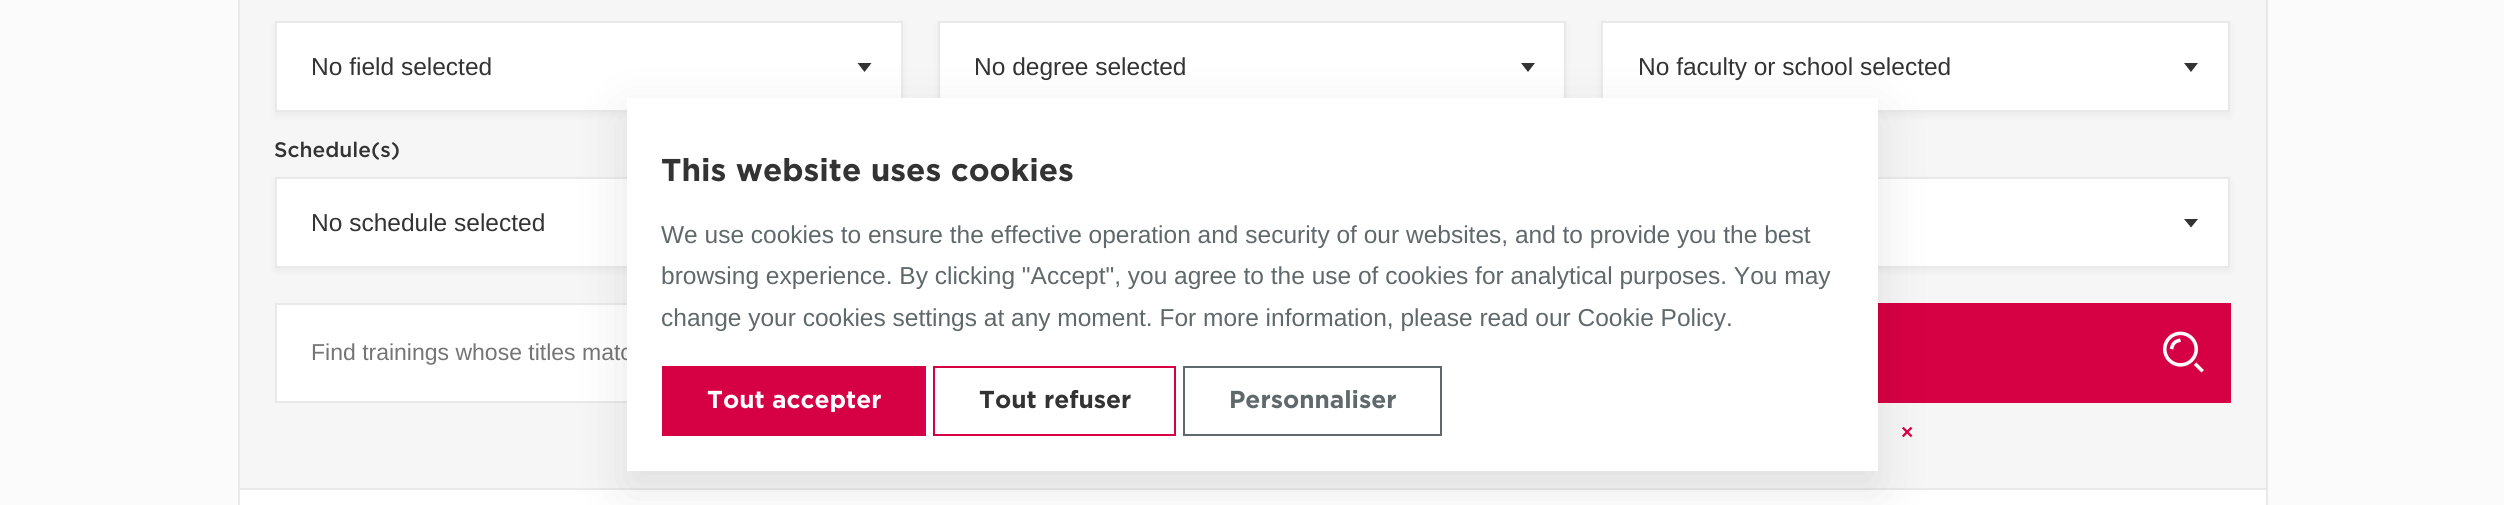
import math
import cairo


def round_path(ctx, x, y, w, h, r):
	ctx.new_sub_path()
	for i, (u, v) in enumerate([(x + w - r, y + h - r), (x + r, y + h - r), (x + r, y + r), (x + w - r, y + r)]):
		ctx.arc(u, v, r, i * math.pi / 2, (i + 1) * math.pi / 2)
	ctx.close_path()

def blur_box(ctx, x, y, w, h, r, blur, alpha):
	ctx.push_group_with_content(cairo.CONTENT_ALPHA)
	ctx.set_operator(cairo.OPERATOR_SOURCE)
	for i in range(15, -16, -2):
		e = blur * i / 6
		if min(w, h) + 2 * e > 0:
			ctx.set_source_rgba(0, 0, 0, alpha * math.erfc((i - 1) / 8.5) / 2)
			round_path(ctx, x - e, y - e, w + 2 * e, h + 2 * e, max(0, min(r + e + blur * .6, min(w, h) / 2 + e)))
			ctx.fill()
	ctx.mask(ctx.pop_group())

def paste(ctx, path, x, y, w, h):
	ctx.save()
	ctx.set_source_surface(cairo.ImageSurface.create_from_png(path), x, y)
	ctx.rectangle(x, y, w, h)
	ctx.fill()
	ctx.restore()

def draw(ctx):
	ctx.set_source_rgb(0.984, 0.984, 0.984)
	ctx.paint()
	ctx.set_source_rgb(0.961, 0.961, 0.961)
	ctx.rectangle(240, 0, 2026, 488)
	ctx.fill()
	ctx.rectangle(239, -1, 2028, 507)
	ctx.set_source_rgb(0.914, 0.914, 0.914)
	ctx.stroke()
	ctx.set_source_rgb(0.102, 0.102, 0.102)
	blur_box(ctx, 275, 25, 628, 91, 0, 3.5, 0.05)
	ctx.set_source_rgb(1, 1, 1)
	ctx.rectangle(276, 22, 626, 89)
	ctx.fill_preserve()
	ctx.set_source_rgb(0.914, 0.914, 0.914)
	ctx.stroke()
	ctx.select_font_face('Liberation Sans')
	ctx.set_font_size(24.5)
	ctx.set_source_rgb(0.2, 0.2, 0.2)
	ctx.move_to(311, 75)
	ctx.show_text('No field selected')
	ctx.new_path()
	ctx.move_to(857.5, 63)
	ctx.line_to(871.5, 63)
	ctx.line_to(864.5, 72)
	ctx.close_path()
	ctx.fill()
	ctx.set_source_rgb(0.102, 0.102, 0.102)
	blur_box(ctx, 938, 25, 628, 91, 0, 3.5, 0.05)
	ctx.set_source_rgb(1, 1, 1)
	ctx.rectangle(940, 23, 624, 75)
	ctx.fill()
	ctx.rectangle(939, 22, 626, 89)
	ctx.set_source_rgb(0.914, 0.914, 0.914)
	ctx.stroke()
	ctx.set_source_rgb(0.2, 0.2, 0.2)
	ctx.move_to(974, 75)
	ctx.show_text('No degree selected')
	ctx.new_path()
	ctx.move_to(1521, 63)
	ctx.line_to(1535, 63)
	ctx.line_to(1528, 72)
	ctx.close_path()
	ctx.fill()
	ctx.set_source_rgb(0.102, 0.102, 0.102)
	blur_box(ctx, 1601, 25, 629, 91, 0, 3.5, 0.05)
	ctx.set_source_rgb(1, 1, 1)
	ctx.rectangle(1602, 22, 627, 89)
	ctx.fill_preserve()
	ctx.set_source_rgb(0.914, 0.914, 0.914)
	ctx.stroke()
	ctx.set_source_rgb(0.2, 0.2, 0.2)
	ctx.move_to(1638, 75)
	ctx.show_text('No faculty or school selected')
	ctx.new_path()
	ctx.move_to(2184, 63)
	ctx.line_to(2198, 63)
	ctx.line_to(2191, 72)
	ctx.close_path()
	ctx.fill()
	ctx.select_font_face('Gotham Medium')
	ctx.set_font_size(21)
	ctx.move_to(274, 157)
	ctx.show_text('Schedule(s)')
	ctx.set_source_rgb(0.102, 0.102, 0.102)
	blur_box(ctx, 275, 180, 628, 91, 0, 3.5, 0.05)
	ctx.set_source_rgb(1, 1, 1)
	ctx.rectangle(277, 179, 350, 87)
	ctx.fill()
	ctx.rectangle(276, 178, 626, 89)
	ctx.set_source_rgb(0.914, 0.914, 0.914)
	ctx.stroke()
	ctx.select_font_face('Liberation Sans')
	ctx.set_font_size(24.5)
	ctx.set_source_rgb(0.2, 0.2, 0.2)
	ctx.move_to(311, 231)
	ctx.show_text('No schedule selected')
	ctx.set_source_rgb(0.102, 0.102, 0.102)
	blur_box(ctx, 1601, 180, 629, 91, 0, 3.5, 0.05)
	ctx.set_source_rgb(1, 1, 1)
	ctx.rectangle(1878, 179, 350, 87)
	ctx.fill()
	ctx.rectangle(1602, 178, 627, 89)
	ctx.set_source_rgb(0.914, 0.914, 0.914)
	ctx.stroke()
	ctx.set_source_rgb(0.2, 0.2, 0.2)
	ctx.new_path()
	ctx.move_to(2184, 219)
	ctx.line_to(2198, 219)
	ctx.line_to(2191, 227.5)
	ctx.close_path()
	ctx.fill()
	ctx.set_source_rgb(1, 1, 1)
	ctx.rectangle(277, 305, 350, 96)
	ctx.fill()
	ctx.rectangle(276, 304, 1456, 98)
	ctx.set_source_rgb(0.914, 0.914, 0.914)
	ctx.stroke()
	ctx.set_font_size(23)
	ctx.set_source_rgb(0.459, 0.459, 0.459)
	ctx.move_to(311, 360)
	ctx.show_text('Find trainings whose titles matc')
	ctx.set_source_rgb(0.839, 0, 0.267)
	ctx.rectangle(1878, 303, 353, 100)
	ctx.fill()
	paste(ctx, 'media/1.png', 2163, 331, 41, 42)
	ctx.select_font_face('Liberation Sans', cairo.FONT_SLANT_NORMAL, cairo.FONT_WEIGHT_BOLD)
	ctx.set_font_size(21)
	ctx.move_to(1901, 439)
	ctx.show_text('×')
	ctx.set_source_rgb(1, 1, 1)
	ctx.rectangle(240, 490, 2026, 15)
	ctx.fill()
	ctx.set_source_rgb(0.914, 0.914, 0.914)
	ctx.rectangle(240, 488, 2026, 2)
	ctx.fill()
	ctx.set_source_rgb(0, 0, 0)
	blur_box(ctx, 627, 116, 1251, 372, 0, 26, 0.1)
	ctx.set_source_rgb(1, 1, 1)
	ctx.rectangle(627, 98, 1251, 373)
	ctx.fill()
	ctx.select_font_face('Gotham', cairo.FONT_SLANT_NORMAL, cairo.FONT_WEIGHT_BOLD)
	ctx.set_font_size(31.5)
	ctx.set_source_rgb(0.2, 0.2, 0.2)
	ctx.move_to(661, 181)
	ctx.show_text('This website uses cookies')
	ctx.select_font_face('Liberation Sans')
	ctx.set_font_size(24.5)
	ctx.set_source_rgb(0.373, 0.408, 0.42)
	for x, y, s in [
		(661, 243, 'We use cookies to ensure the effective operation and security of our websites, and to provide you the best'),
		(661, 284, 'browsing experience. By clicking "Accept", you agree to the use of cookies for analytical purposes. You may'),
		(661, 326, 'change your cookies settings at any moment. For more information, please read our Cookie Policy.'),
	]:
		ctx.move_to(x, y)
		ctx.show_text(s)
	ctx.set_source_rgb(0.839, 0, 0.267)
	ctx.rectangle(662, 366, 264, 70)
	ctx.fill()
	ctx.select_font_face('Gotham', cairo.FONT_SLANT_NORMAL, cairo.FONT_WEIGHT_BOLD)
	ctx.set_source_rgb(1, 1, 1)
	ctx.move_to(707, 408)
	ctx.show_text('Tout accepter')
	ctx.rectangle(934, 367, 241, 68)
	ctx.set_source_rgb(0.839, 0, 0.267)
	ctx.stroke()
	ctx.set_source_rgb(0.2, 0.2, 0.2)
	ctx.move_to(979, 408)
	ctx.show_text('Tout refuser')
	ctx.rectangle(1184, 367, 257, 68)
	ctx.set_source_rgb(0.373, 0.408, 0.42)
	ctx.stroke()
	ctx.move_to(1229, 408)
	ctx.show_text('Personnaliser')


surface = cairo.ImageSurface(cairo.FORMAT_RGB24, 2504, 505)
ctx = cairo.Context(surface)
options = cairo.FontOptions()
options.set_hint_metrics(cairo.HINT_METRICS_OFF)
options.set_hint_style(cairo.HINT_STYLE_NONE)
ctx.set_font_options(options)
ctx.set_miter_limit(4)
draw(ctx)
surface.write_to_png('image.png')
